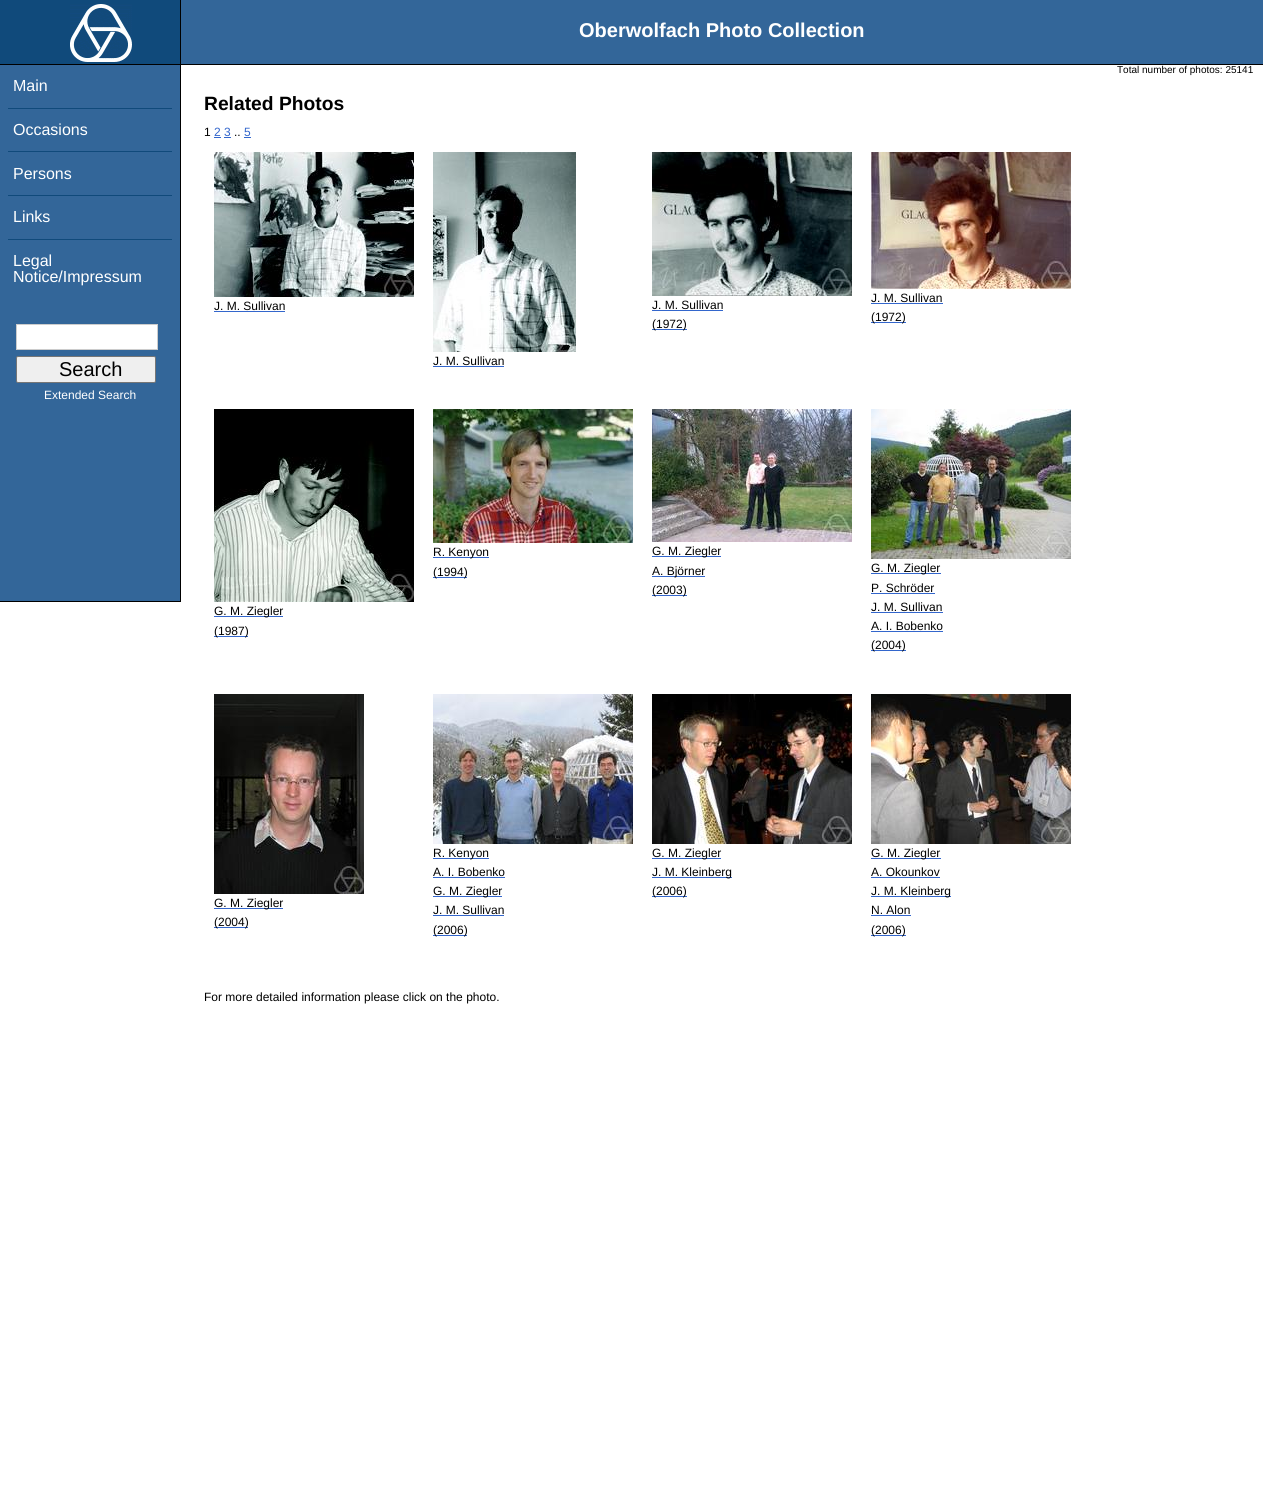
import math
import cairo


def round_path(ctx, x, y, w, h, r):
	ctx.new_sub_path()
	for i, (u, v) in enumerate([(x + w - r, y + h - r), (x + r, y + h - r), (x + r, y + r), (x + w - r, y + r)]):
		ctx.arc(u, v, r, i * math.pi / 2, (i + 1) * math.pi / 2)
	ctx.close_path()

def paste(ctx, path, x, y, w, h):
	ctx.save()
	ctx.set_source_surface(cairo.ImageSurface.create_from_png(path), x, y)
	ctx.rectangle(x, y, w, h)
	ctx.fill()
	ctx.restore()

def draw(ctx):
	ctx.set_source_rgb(1, 1, 1)
	ctx.paint()
	ctx.set_source_rgb(0.2, 0.4, 0.6)
	ctx.rectangle(181, 0, 1082, 64)
	ctx.fill()
	ctx.set_source_rgb(0, 0, 0)
	ctx.rectangle(0, 64, 1263, 1)
	ctx.fill()
	ctx.set_source_rgb(0.063, 0.29, 0.482)
	ctx.rectangle(0, 0, 180, 64)
	ctx.fill()
	ctx.set_source_rgb(0, 0, 0)
	ctx.rectangle(180, 0, 1, 64)
	ctx.fill()
	paste(ctx, 'media/1.png', 70, 4, 62, 58)
	ctx.select_font_face('Liberation Sans', cairo.FONT_SLANT_NORMAL, cairo.FONT_WEIGHT_BOLD)
	ctx.set_font_size(20)
	ctx.set_source_rgb(1, 1, 1)
	ctx.move_to(579, 37)
	ctx.show_text('Oberwolfach Photo Collection')
	ctx.select_font_face('Liberation Sans')
	ctx.set_font_size(10)
	ctx.set_source_rgb(0, 0, 0)
	ctx.move_to(1117, 73)
	ctx.show_text('Total number of photos: 25141')
	ctx.set_source_rgb(0.2, 0.4, 0.6)
	ctx.rectangle(0, 65, 180, 536)
	ctx.fill()
	ctx.set_source_rgb(0, 0, 0)
	ctx.rectangle(180, 65, 1, 537)
	ctx.rectangle(0, 601, 181, 1)
	ctx.fill()
	ctx.set_font_size(16)
	ctx.set_source_rgb(1, 1, 1)
	ctx.move_to(13, 91)
	ctx.show_text('Main')
	ctx.set_source_rgb(0.063, 0.29, 0.482)
	ctx.rectangle(8, 108, 164, 1)
	ctx.fill()
	ctx.set_source_rgb(1, 1, 1)
	ctx.move_to(13, 135)
	ctx.show_text('Occasions')
	ctx.set_source_rgb(0.063, 0.29, 0.482)
	ctx.rectangle(8, 151, 164, 1)
	ctx.fill()
	ctx.set_source_rgb(1, 1, 1)
	ctx.move_to(13, 179)
	ctx.show_text('Persons')
	ctx.set_source_rgb(0.063, 0.29, 0.482)
	ctx.rectangle(8, 195, 164, 1)
	ctx.fill()
	ctx.set_source_rgb(1, 1, 1)
	ctx.move_to(13, 222)
	ctx.show_text('Links')
	ctx.set_source_rgb(0.063, 0.29, 0.482)
	ctx.rectangle(8, 239, 164, 1)
	ctx.fill()
	ctx.set_source_rgb(1, 1, 1)
	ctx.move_to(13, 266)
	ctx.show_text('Legal')
	ctx.move_to(13, 282)
	ctx.show_text('Notice/Impressum')
	ctx.rectangle(16.5, 324.5, 141, 25)
	ctx.fill_preserve()
	ctx.set_source_rgb(0.8, 0.8, 0.8)
	ctx.set_line_width(1)
	ctx.stroke()
	ctx.set_source_rgb(0.937, 0.937, 0.937)
	round_path(ctx, 16.5, 356.5, 139, 26, 1.5)
	ctx.fill_preserve()
	ctx.set_source_rgb(0.463, 0.463, 0.463)
	ctx.stroke()
	ctx.set_font_size(20)
	ctx.set_source_rgb(0, 0, 0)
	ctx.move_to(59, 376)
	ctx.show_text('Search')
	ctx.set_font_size(12)
	ctx.set_source_rgb(1, 1, 1)
	ctx.move_to(44, 399)
	ctx.show_text('Extended Search')
	ctx.select_font_face('Liberation Sans', cairo.FONT_SLANT_NORMAL, cairo.FONT_WEIGHT_BOLD)
	ctx.set_font_size(19.25)
	ctx.set_source_rgb(0, 0, 0)
	ctx.move_to(204, 110)
	ctx.show_text('Related Photos')
	ctx.select_font_face('Liberation Sans')
	ctx.set_font_size(12)
	ctx.move_to(204, 136)
	ctx.show_text('1')
	ctx.set_source_rgb(0.2, 0.4, 0.8)
	ctx.move_to(214, 136)
	ctx.show_text('2 3')
	ctx.rectangle(214, 137, 7, 1)
	ctx.fill()
	ctx.set_source_rgb(0, 0, 0)
	ctx.move_to(234, 136)
	ctx.show_text('..')
	ctx.set_source_rgb(0.2, 0.4, 0.8)
	ctx.move_to(244, 136)
	ctx.show_text('5')
	ctx.rectangle(244, 137, 7, 1)
	ctx.fill()
	ctx.rectangle(224, 137, 7, 1)
	ctx.fill()
	paste(ctx, 'media/2.png', 214, 152, 200, 145)
	ctx.set_source_rgb(0, 0, 0)
	ctx.move_to(214, 310)
	ctx.show_text('J. M. Sullivan')
	ctx.set_source_rgb(0.2, 0.4, 0.8)
	ctx.rectangle(214, 311, 71, 1)
	ctx.fill()
	paste(ctx, 'media/3.png', 652, 152, 200, 144)
	ctx.set_source_rgb(0, 0, 0)
	ctx.move_to(652, 309)
	ctx.show_text('J. M. Sullivan')
	ctx.set_source_rgb(0.2, 0.4, 0.8)
	ctx.rectangle(652, 310, 71, 1)
	ctx.fill()
	ctx.rectangle(652, 329, 35, 1)
	ctx.fill()
	ctx.set_source_rgb(0, 0, 0)
	ctx.move_to(652, 328)
	ctx.show_text('(1972)')
	paste(ctx, 'media/4.png', 871, 152, 200, 137)
	ctx.move_to(871, 302)
	ctx.show_text('J. M. Sullivan')
	ctx.set_source_rgb(0.2, 0.4, 0.8)
	ctx.rectangle(871, 303, 72, 1)
	ctx.fill()
	ctx.rectangle(871, 322, 35, 1)
	ctx.fill()
	ctx.set_source_rgb(0, 0, 0)
	ctx.move_to(871, 321)
	ctx.show_text('(1972)')
	paste(ctx, 'media/5.png', 433, 152, 143, 200)
	ctx.move_to(433, 365)
	ctx.show_text('J. M. Sullivan')
	ctx.set_source_rgb(0.2, 0.4, 0.8)
	ctx.rectangle(433, 366, 71, 1)
	ctx.fill()
	paste(ctx, 'media/6.png', 214, 409, 200, 193)
	ctx.rectangle(214, 616, 69, 1)
	ctx.fill()
	ctx.set_source_rgb(0, 0, 0)
	ctx.move_to(214, 615)
	ctx.show_text('G. M. Ziegler')
	ctx.set_source_rgb(0.2, 0.4, 0.8)
	ctx.rectangle(214, 636, 34, 1)
	ctx.fill()
	ctx.set_source_rgb(0, 0, 0)
	ctx.move_to(214, 635)
	ctx.show_text('(1987)')
	paste(ctx, 'media/7.png', 433, 409, 200, 134)
	ctx.set_source_rgb(0.2, 0.4, 0.8)
	ctx.rectangle(433, 557, 56, 1)
	ctx.fill()
	ctx.set_source_rgb(0, 0, 0)
	ctx.move_to(433, 556)
	ctx.show_text('R. Kenyon')
	ctx.set_source_rgb(0.2, 0.4, 0.8)
	ctx.rectangle(433, 577, 34, 1)
	ctx.fill()
	ctx.set_source_rgb(0, 0, 0)
	ctx.move_to(433, 576)
	ctx.show_text('(1994)')
	paste(ctx, 'media/8.png', 652, 409, 200, 133)
	ctx.set_source_rgb(0.2, 0.4, 0.8)
	ctx.rectangle(652, 556, 69, 1)
	ctx.fill()
	ctx.set_source_rgb(0, 0, 0)
	ctx.move_to(652, 555)
	ctx.show_text('G. M. Ziegler')
	ctx.set_source_rgb(0.2, 0.4, 0.8)
	ctx.rectangle(652, 576, 53, 1)
	ctx.fill()
	ctx.set_source_rgb(0, 0, 0)
	ctx.move_to(652, 575)
	ctx.show_text('A. Björner')
	ctx.set_source_rgb(0.2, 0.4, 0.8)
	ctx.rectangle(652, 595, 35, 1)
	ctx.fill()
	ctx.set_source_rgb(0, 0, 0)
	ctx.move_to(652, 594)
	ctx.show_text('(2003)')
	paste(ctx, 'media/9.png', 871, 409, 200, 150)
	ctx.set_source_rgb(0.2, 0.4, 0.8)
	ctx.rectangle(871, 573, 70, 1)
	ctx.fill()
	ctx.set_source_rgb(0, 0, 0)
	ctx.move_to(871, 572)
	ctx.show_text('G. M. Ziegler')
	ctx.move_to(871, 592)
	ctx.show_text('P. Schröder')
	ctx.set_source_rgb(0.2, 0.4, 0.8)
	ctx.rectangle(871, 593, 64, 1)
	ctx.fill()
	ctx.set_source_rgb(0, 0, 0)
	ctx.move_to(871, 611)
	ctx.show_text('J. M. Sullivan')
	ctx.set_source_rgb(0.2, 0.4, 0.8)
	ctx.rectangle(871, 612, 72, 1)
	ctx.fill()
	ctx.set_source_rgb(0, 0, 0)
	ctx.move_to(871, 630)
	ctx.show_text('A. I. Bobenko')
	ctx.set_source_rgb(0.2, 0.4, 0.8)
	ctx.rectangle(871, 631, 72, 1)
	ctx.fill()
	ctx.rectangle(871, 650, 35, 1)
	ctx.fill()
	ctx.set_source_rgb(0, 0, 0)
	ctx.move_to(871, 649)
	ctx.show_text('(2004)')
	paste(ctx, 'media/10.png', 214, 694, 150, 200)
	ctx.set_source_rgb(0.2, 0.4, 0.8)
	ctx.rectangle(214, 908, 69, 1)
	ctx.fill()
	ctx.set_source_rgb(0, 0, 0)
	ctx.move_to(214, 907)
	ctx.show_text('G. M. Ziegler')
	ctx.set_source_rgb(0.2, 0.4, 0.8)
	ctx.rectangle(214, 927, 34, 1)
	ctx.fill()
	ctx.set_source_rgb(0, 0, 0)
	ctx.move_to(214, 926)
	ctx.show_text('(2004)')
	paste(ctx, 'media/11.png', 433, 694, 200, 150)
	ctx.set_source_rgb(0.2, 0.4, 0.8)
	ctx.rectangle(433, 858, 56, 1)
	ctx.fill()
	ctx.set_source_rgb(0, 0, 0)
	ctx.move_to(433, 857)
	ctx.show_text('R. Kenyon')
	ctx.move_to(433, 876)
	ctx.show_text('A. I. Bobenko')
	ctx.set_source_rgb(0.2, 0.4, 0.8)
	ctx.rectangle(433, 877, 72, 1)
	ctx.fill()
	ctx.rectangle(433, 896, 69, 1)
	ctx.fill()
	ctx.set_source_rgb(0, 0, 0)
	ctx.move_to(433, 895)
	ctx.show_text('G. M. Ziegler')
	ctx.move_to(433, 914)
	ctx.show_text('J. M. Sullivan')
	ctx.set_source_rgb(0.2, 0.4, 0.8)
	ctx.rectangle(433, 915, 71, 1)
	ctx.fill()
	ctx.rectangle(433, 935, 34, 1)
	ctx.fill()
	ctx.set_source_rgb(0, 0, 0)
	ctx.move_to(433, 934)
	ctx.show_text('(2006)')
	paste(ctx, 'media/12.png', 652, 694, 200, 150)
	ctx.set_source_rgb(0.2, 0.4, 0.8)
	ctx.rectangle(652, 858, 69, 1)
	ctx.fill()
	ctx.set_source_rgb(0, 0, 0)
	ctx.move_to(652, 857)
	ctx.show_text('G. M. Ziegler')
	ctx.set_source_rgb(0.2, 0.4, 0.8)
	ctx.rectangle(652, 877, 80, 1)
	ctx.fill()
	ctx.set_source_rgb(0, 0, 0)
	ctx.move_to(652, 876)
	ctx.show_text('J. M. Kleinberg')
	ctx.set_source_rgb(0.2, 0.4, 0.8)
	ctx.rectangle(652, 896, 35, 1)
	ctx.fill()
	ctx.set_source_rgb(0, 0, 0)
	ctx.move_to(652, 895)
	ctx.show_text('(2006)')
	paste(ctx, 'media/13.png', 871, 694, 200, 150)
	ctx.set_source_rgb(0.2, 0.4, 0.8)
	ctx.rectangle(871, 858, 70, 1)
	ctx.fill()
	ctx.set_source_rgb(0, 0, 0)
	ctx.move_to(871, 857)
	ctx.show_text('G. M. Ziegler')
	ctx.move_to(871, 876)
	ctx.show_text('A. Okounkov')
	ctx.set_source_rgb(0.2, 0.4, 0.8)
	ctx.rectangle(871, 877, 69, 1)
	ctx.fill()
	ctx.rectangle(871, 896, 80, 1)
	ctx.fill()
	ctx.set_source_rgb(0, 0, 0)
	ctx.move_to(871, 895)
	ctx.show_text('J. M. Kleinberg')
	ctx.move_to(871, 914)
	ctx.show_text('N. Alon')
	ctx.set_source_rgb(0.2, 0.4, 0.8)
	ctx.rectangle(871, 915, 40, 1)
	ctx.fill()
	ctx.rectangle(871, 935, 35, 1)
	ctx.fill()
	ctx.set_source_rgb(0, 0, 0)
	ctx.move_to(871, 934)
	ctx.show_text('(2006)')
	ctx.move_to(204, 1001)
	ctx.show_text('For more detailed information please click on the photo.')


surface = cairo.ImageSurface(cairo.FORMAT_RGB24, 1263, 1488)
ctx = cairo.Context(surface)
options = cairo.FontOptions()
options.set_hint_metrics(cairo.HINT_METRICS_OFF)
options.set_hint_style(cairo.HINT_STYLE_NONE)
ctx.set_font_options(options)
ctx.set_miter_limit(4)
draw(ctx)
surface.write_to_png('image.png')
